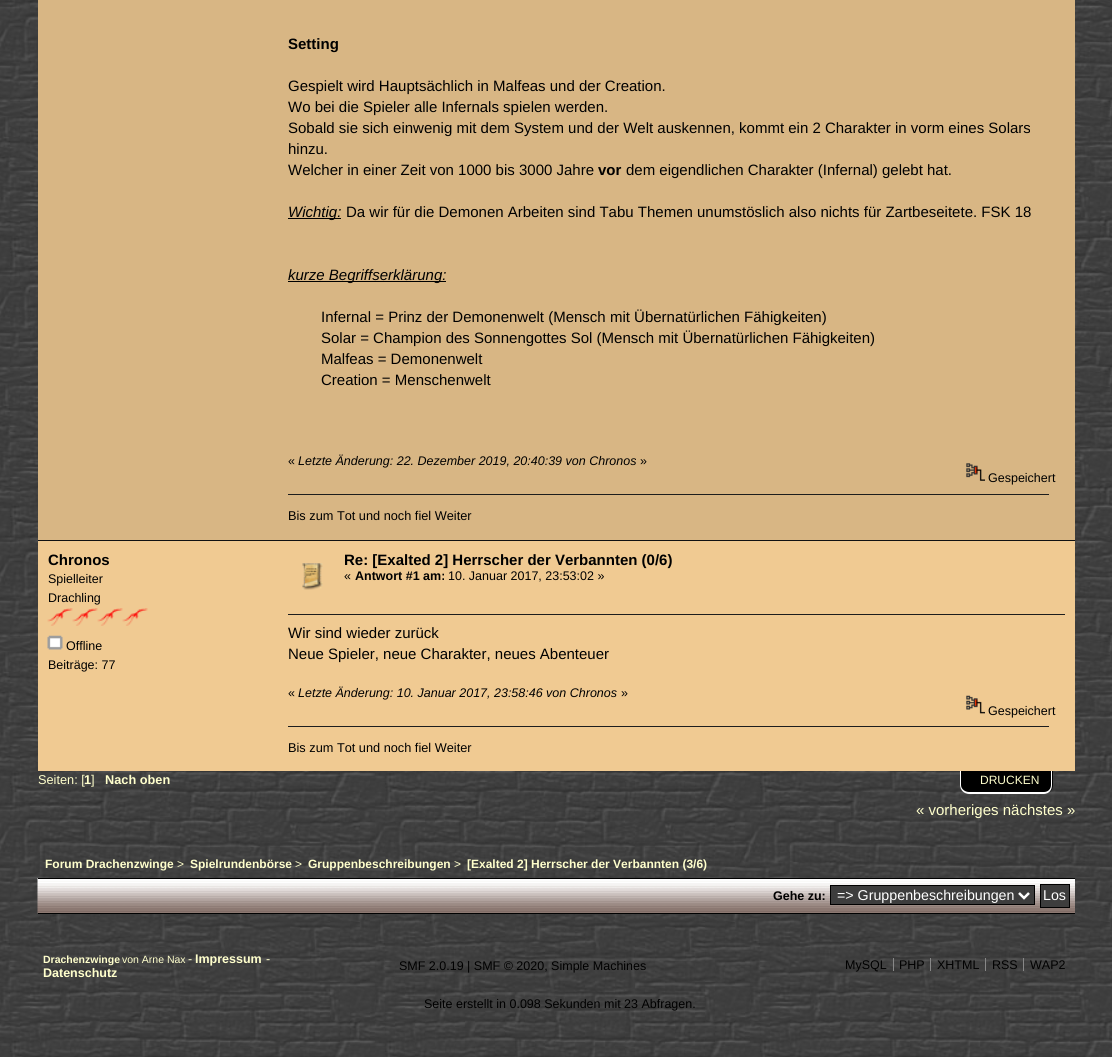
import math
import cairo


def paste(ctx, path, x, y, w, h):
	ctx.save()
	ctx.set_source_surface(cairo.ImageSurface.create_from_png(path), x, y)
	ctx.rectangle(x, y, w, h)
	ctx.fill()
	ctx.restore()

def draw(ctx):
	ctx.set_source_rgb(1, 1, 1)
	ctx.paint()
	paste(ctx, 'media/1.png', 0, 0, 1112, 1057)
	ctx.set_source_rgb(0.847, 0.714, 0.518)
	ctx.rectangle(38, 0, 1037, 540)
	ctx.fill()
	ctx.select_font_face('Liberation Sans', cairo.FONT_SLANT_NORMAL, cairo.FONT_WEIGHT_BOLD)
	ctx.set_font_size(15)
	ctx.set_source_rgb(0, 0, 0)
	ctx.move_to(288, 49)
	ctx.show_text('Setting')
	ctx.select_font_face('Liberation Sans')
	for x, y, s in [
		(288, 91, 'Gespielt wird Hauptsächlich in Malfeas und der Creation.'),
		(288, 112, 'Wo bei die Spieler alle Infernals spielen werden.'),
		(288, 133, 'Sobald sie sich einwenig mit dem System und der Welt auskennen, kommt ein 2 Charakter in vorm eines Solars'),
		(288, 154, 'hinzu.'),
		(288, 175, 'Welcher in einer Zeit von 1000 bis 3000 Jahre'),
	]:
		ctx.move_to(x, y)
		ctx.show_text(s)
	ctx.select_font_face('Liberation Sans', cairo.FONT_SLANT_NORMAL, cairo.FONT_WEIGHT_BOLD)
	ctx.move_to(598, 175)
	ctx.show_text('vor')
	ctx.select_font_face('Liberation Sans')
	ctx.move_to(626, 175)
	ctx.show_text('dem eigendlichen Charakter (Infernal) gelebt hat.')
	ctx.rectangle(288, 218, 53, 1)
	ctx.fill()
	ctx.select_font_face('Liberation Sans', cairo.FONT_SLANT_ITALIC)
	ctx.move_to(288, 217)
	ctx.show_text('Wichtig:')
	ctx.select_font_face('Liberation Sans')
	ctx.move_to(346, 217)
	ctx.show_text('Da wir für die Demonen Arbeiten sind Tabu Themen unumstöslich also nichts für Zartbeseitete. FSK 18')
	ctx.rectangle(288, 281, 158, 1)
	ctx.fill()
	ctx.select_font_face('Liberation Sans', cairo.FONT_SLANT_ITALIC)
	ctx.move_to(288, 280)
	ctx.show_text('kurze Begriffserklärung:')
	ctx.select_font_face('Liberation Sans')
	for x, y, s in [
		(321, 322, 'Infernal = Prinz der Demonenwelt (Mensch mit Übernatürlichen Fähigkeiten)'),
		(321, 343, 'Solar = Champion des Sonnengottes Sol (Mensch mit Übernatürlichen Fähigkeiten)'),
		(321, 364, 'Malfeas = Demonenwelt'),
		(321, 385, 'Creation = Menschenwelt'),
	]:
		ctx.move_to(x, y)
		ctx.show_text(s)
	ctx.set_font_size(12.5)
	ctx.move_to(288, 465)
	ctx.show_text('«')
	ctx.select_font_face('Liberation Sans', cairo.FONT_SLANT_ITALIC)
	ctx.move_to(298, 465)
	ctx.show_text('Letzte Änderung: 22. Dezember 2019, 20:40:39 von Chronos')
	ctx.select_font_face('Liberation Sans')
	ctx.move_to(640, 465)
	ctx.show_text('»')
	paste(ctx, 'media/2.png', 966, 463, 19, 18)
	ctx.move_to(988, 482)
	ctx.show_text('Gespeichert')
	ctx.set_source_rgb(0.114, 0.114, 0.114)
	ctx.rectangle(288, 494, 761, 1)
	ctx.fill()
	ctx.set_font_size(12.75)
	ctx.set_source_rgb(0, 0, 0)
	ctx.move_to(288, 520)
	ctx.show_text('Bis zum Tot und noch fiel Weiter')
	ctx.set_source_rgb(0.941, 0.792, 0.573)
	ctx.rectangle(38, 541, 1037, 230)
	ctx.fill()
	ctx.set_source_rgb(0.067, 0.067, 0.067)
	ctx.rectangle(38, 540, 1037, 1)
	ctx.fill()
	ctx.select_font_face('Liberation Sans', cairo.FONT_SLANT_NORMAL, cairo.FONT_WEIGHT_BOLD)
	ctx.set_font_size(15)
	ctx.set_source_rgb(0, 0, 0)
	ctx.move_to(48, 565)
	ctx.show_text('Chronos')
	ctx.select_font_face('Liberation Sans')
	ctx.set_font_size(12.5)
	ctx.move_to(48, 583)
	ctx.show_text('Spielleiter')
	ctx.move_to(48, 602)
	ctx.show_text('Drachling')
	paste(ctx, 'media/3.png', 47, 608, 26, 18)
	paste(ctx, 'media/4.png', 72, 608, 26, 18)
	paste(ctx, 'media/5.png', 97, 608, 26, 18)
	paste(ctx, 'media/5.png', 122, 608, 26, 18)
	paste(ctx, 'media/6.png', 47, 635, 16, 15)
	ctx.move_to(66, 650)
	ctx.show_text('Offline')
	ctx.move_to(48, 669)
	ctx.show_text('Beiträge: 77')
	ctx.select_font_face('Liberation Sans', cairo.FONT_SLANT_NORMAL, cairo.FONT_WEIGHT_BOLD)
	ctx.set_font_size(15)
	ctx.move_to(344, 565)
	ctx.show_text('Re: [Exalted 2] Herrscher der Verbannten (0/6)')
	paste(ctx, 'media/7.png', 302, 563, 21, 27)
	ctx.select_font_face('Liberation Sans')
	ctx.set_font_size(12.5)
	ctx.move_to(344, 580)
	ctx.show_text('«')
	ctx.select_font_face('Liberation Sans', cairo.FONT_SLANT_NORMAL, cairo.FONT_WEIGHT_BOLD)
	ctx.move_to(355, 580)
	ctx.show_text('Antwort #1 am:')
	ctx.select_font_face('Liberation Sans')
	ctx.move_to(448, 580)
	ctx.show_text('10. Januar 2017, 23:53:02 »')
	ctx.set_source_rgb(0.114, 0.114, 0.114)
	ctx.rectangle(288, 614, 777, 1)
	ctx.fill()
	ctx.set_font_size(15)
	ctx.set_source_rgb(0, 0, 0)
	ctx.move_to(288, 638)
	ctx.show_text('Wir sind wieder zurück')
	ctx.move_to(288, 659)
	ctx.show_text('Neue Spieler, neue Charakter, neues Abenteuer')
	ctx.set_font_size(12.5)
	ctx.move_to(288, 697)
	ctx.show_text('«')
	ctx.select_font_face('Liberation Sans', cairo.FONT_SLANT_ITALIC)
	ctx.move_to(298, 697)
	ctx.show_text('Letzte Änderung: 10. Januar 2017, 23:58:46 von Chronos')
	ctx.select_font_face('Liberation Sans')
	ctx.move_to(621, 697)
	ctx.show_text('»')
	paste(ctx, 'media/8.png', 966, 695, 19, 19)
	ctx.move_to(988, 715)
	ctx.show_text('Gespeichert')
	ctx.set_source_rgb(0.114, 0.114, 0.114)
	ctx.rectangle(288, 726, 761, 1)
	ctx.fill()
	ctx.set_font_size(12.75)
	ctx.set_source_rgb(0, 0, 0)
	ctx.move_to(288, 752)
	ctx.show_text('Bis zum Tot und noch fiel Weiter')
	ctx.set_source_rgb(1, 1, 0.8)
	ctx.move_to(38, 784)
	ctx.show_text('Seiten: [')
	ctx.select_font_face('Liberation Sans', cairo.FONT_SLANT_NORMAL, cairo.FONT_WEIGHT_BOLD)
	ctx.move_to(84, 784)
	ctx.show_text('1')
	ctx.select_font_face('Liberation Sans')
	ctx.move_to(91, 784)
	ctx.show_text(']')
	ctx.select_font_face('Liberation Sans', cairo.FONT_SLANT_NORMAL, cairo.FONT_WEIGHT_BOLD)
	ctx.move_to(105, 784)
	ctx.show_text('Nach oben')
	ctx.set_source_rgb(0, 0, 0)
	ctx.new_path()
	ctx.move_to(960, 771)
	ctx.line_to(1053, 771)
	ctx.line_to(1053, 785)
	ctx.curve_to(1053, 790, 1049, 794, 1044, 794)
	ctx.line_to(969, 794)
	ctx.curve_to(964, 794, 960, 790, 960, 785)
	ctx.close_path()
	ctx.fill()
	ctx.set_source_rgb(1, 1, 1)
	ctx.set_fill_rule(cairo.FILL_RULE_EVEN_ODD)
	ctx.new_path()
	ctx.move_to(960, 771)
	ctx.line_to(1052, 771)
	ctx.line_to(1052, 785)
	ctx.curve_to(1052, 790, 1049, 794, 1044, 794)
	ctx.line_to(969, 794)
	ctx.curve_to(964, 794, 960, 790, 960, 785)
	ctx.close_path()
	ctx.move_to(961, 771)
	ctx.line_to(1051, 771)
	ctx.line_to(1051, 785)
	ctx.curve_to(1051, 789, 1048, 792, 1044, 792)
	ctx.line_to(969, 792)
	ctx.curve_to(965, 792, 961, 789, 961, 785)
	ctx.close_path()
	ctx.fill()
	ctx.select_font_face('Liberation Sans')
	ctx.set_font_size(12)
	ctx.set_source_rgb(1, 1, 0.8)
	ctx.move_to(980, 784)
	ctx.show_text('DRUCKEN')
	ctx.set_font_size(15)
	ctx.move_to(916, 815)
	ctx.show_text('« vorheriges nächstes »')
	ctx.select_font_face('Liberation Sans', cairo.FONT_SLANT_NORMAL, cairo.FONT_WEIGHT_BOLD)
	ctx.set_font_size(12)
	ctx.move_to(45, 868)
	ctx.show_text('Forum Drachenzwinge')
	ctx.select_font_face('Liberation Sans')
	ctx.move_to(177, 868)
	ctx.show_text('>')
	ctx.select_font_face('Liberation Sans', cairo.FONT_SLANT_NORMAL, cairo.FONT_WEIGHT_BOLD)
	ctx.move_to(190, 868)
	ctx.show_text('Spielrundenbörse')
	ctx.select_font_face('Liberation Sans')
	ctx.move_to(295, 868)
	ctx.show_text('>')
	ctx.select_font_face('Liberation Sans', cairo.FONT_SLANT_NORMAL, cairo.FONT_WEIGHT_BOLD)
	ctx.move_to(308, 868)
	ctx.show_text('Gruppenbeschreibungen')
	ctx.select_font_face('Liberation Sans')
	ctx.move_to(454, 868)
	ctx.show_text('>')
	ctx.select_font_face('Liberation Sans', cairo.FONT_SLANT_NORMAL, cairo.FONT_WEIGHT_BOLD)
	ctx.move_to(467, 868)
	ctx.show_text('[Exalted 2] Herrscher der Verbannten (3/6)')
	paste(ctx, 'media/9.png', 37, 878, 1038, 36)
	ctx.set_source_rgb(0, 0, 0)
	ctx.rectangle(38, 878, 1037, 1)
	ctx.fill()
	ctx.rectangle(38, 913, 1037, 1)
	ctx.fill()
	ctx.set_font_size(12.5)
	ctx.move_to(773, 900)
	ctx.show_text('Gehe zu:')
	ctx.set_source_rgb(0.239, 0.239, 0.239)
	ctx.rectangle(830.5, 885.5, 204, 19)
	ctx.fill_preserve()
	ctx.set_source_rgb(0, 0, 0)
	ctx.set_line_width(1)
	ctx.stroke()
	ctx.new_path()
	ctx.move_to(1019, 893)
	ctx.line_to(1024, 898)
	ctx.line_to(1029, 893)
	ctx.set_source_rgb(1, 1, 1)
	ctx.set_line_width(2.5)
	ctx.stroke()
	ctx.select_font_face('Liberation Sans')
	ctx.set_font_size(14.25)
	ctx.move_to(837, 900)
	ctx.show_text('=> Gruppenbeschreibungen')
	ctx.set_source_rgb(0.239, 0.239, 0.239)
	ctx.rectangle(1040.5, 884.5, 29, 23)
	ctx.fill_preserve()
	ctx.set_source_rgb(0, 0, 0)
	ctx.set_line_width(1)
	ctx.stroke()
	ctx.set_source_rgb(1, 1, 1)
	ctx.move_to(1043, 900)
	ctx.show_text('Los')
	ctx.select_font_face('Liberation Sans', cairo.FONT_SLANT_NORMAL, cairo.FONT_WEIGHT_BOLD)
	ctx.set_font_size(10.5)
	ctx.set_source_rgb(1, 1, 0.8)
	ctx.move_to(43, 963)
	ctx.show_text('Drachenzwinge')
	ctx.select_font_face('Liberation Sans')
	ctx.move_to(122, 963)
	ctx.show_text('von Arne Nax')
	ctx.set_font_size(12.5)
	ctx.move_to(188, 963)
	ctx.show_text('-')
	ctx.select_font_face('Liberation Sans', cairo.FONT_SLANT_NORMAL, cairo.FONT_WEIGHT_BOLD)
	ctx.move_to(195, 963)
	ctx.show_text('Impressum')
	ctx.select_font_face('Liberation Sans')
	ctx.move_to(266, 963)
	ctx.show_text('-')
	ctx.select_font_face('Liberation Sans', cairo.FONT_SLANT_NORMAL, cairo.FONT_WEIGHT_BOLD)
	ctx.move_to(43, 977)
	ctx.show_text('Datenschutz')
	ctx.select_font_face('Liberation Sans')
	ctx.set_source_rgb(0, 0, 0)
	ctx.move_to(399, 970)
	ctx.show_text('SMF 2.0.19 | SMF © 2020, Simple Machines')
	ctx.move_to(845, 969)
	ctx.show_text('MySQL')
	ctx.set_source_rgb(0.533, 0.533, 0.533)
	ctx.rectangle(893, 958, 1, 13)
	ctx.fill()
	ctx.set_source_rgb(0, 0, 0)
	ctx.move_to(899, 969)
	ctx.show_text('PHP')
	ctx.set_source_rgb(0.533, 0.533, 0.533)
	ctx.rectangle(930, 958, 1, 13)
	ctx.fill()
	ctx.set_source_rgb(0, 0, 0)
	ctx.move_to(937, 969)
	ctx.show_text('XHTML')
	ctx.set_source_rgb(0.533, 0.533, 0.533)
	ctx.rectangle(985, 958, 1, 13)
	ctx.fill()
	ctx.set_source_rgb(0, 0, 0)
	ctx.move_to(992, 969)
	ctx.show_text('RSS')
	ctx.set_source_rgb(0.533, 0.533, 0.533)
	ctx.rectangle(1023, 958, 1, 13)
	ctx.fill()
	ctx.set_source_rgb(0, 0, 0)
	ctx.move_to(1030, 969)
	ctx.show_text('WAP2')
	ctx.move_to(424, 1008)
	ctx.show_text('Seite erstellt in 0.098 Sekunden mit 23 Abfragen.')


surface = cairo.ImageSurface(cairo.FORMAT_RGB24, 1112, 1057)
ctx = cairo.Context(surface)
options = cairo.FontOptions()
options.set_hint_metrics(cairo.HINT_METRICS_OFF)
options.set_hint_style(cairo.HINT_STYLE_NONE)
ctx.set_font_options(options)
ctx.set_miter_limit(4)
draw(ctx)
surface.write_to_png('image.png')
